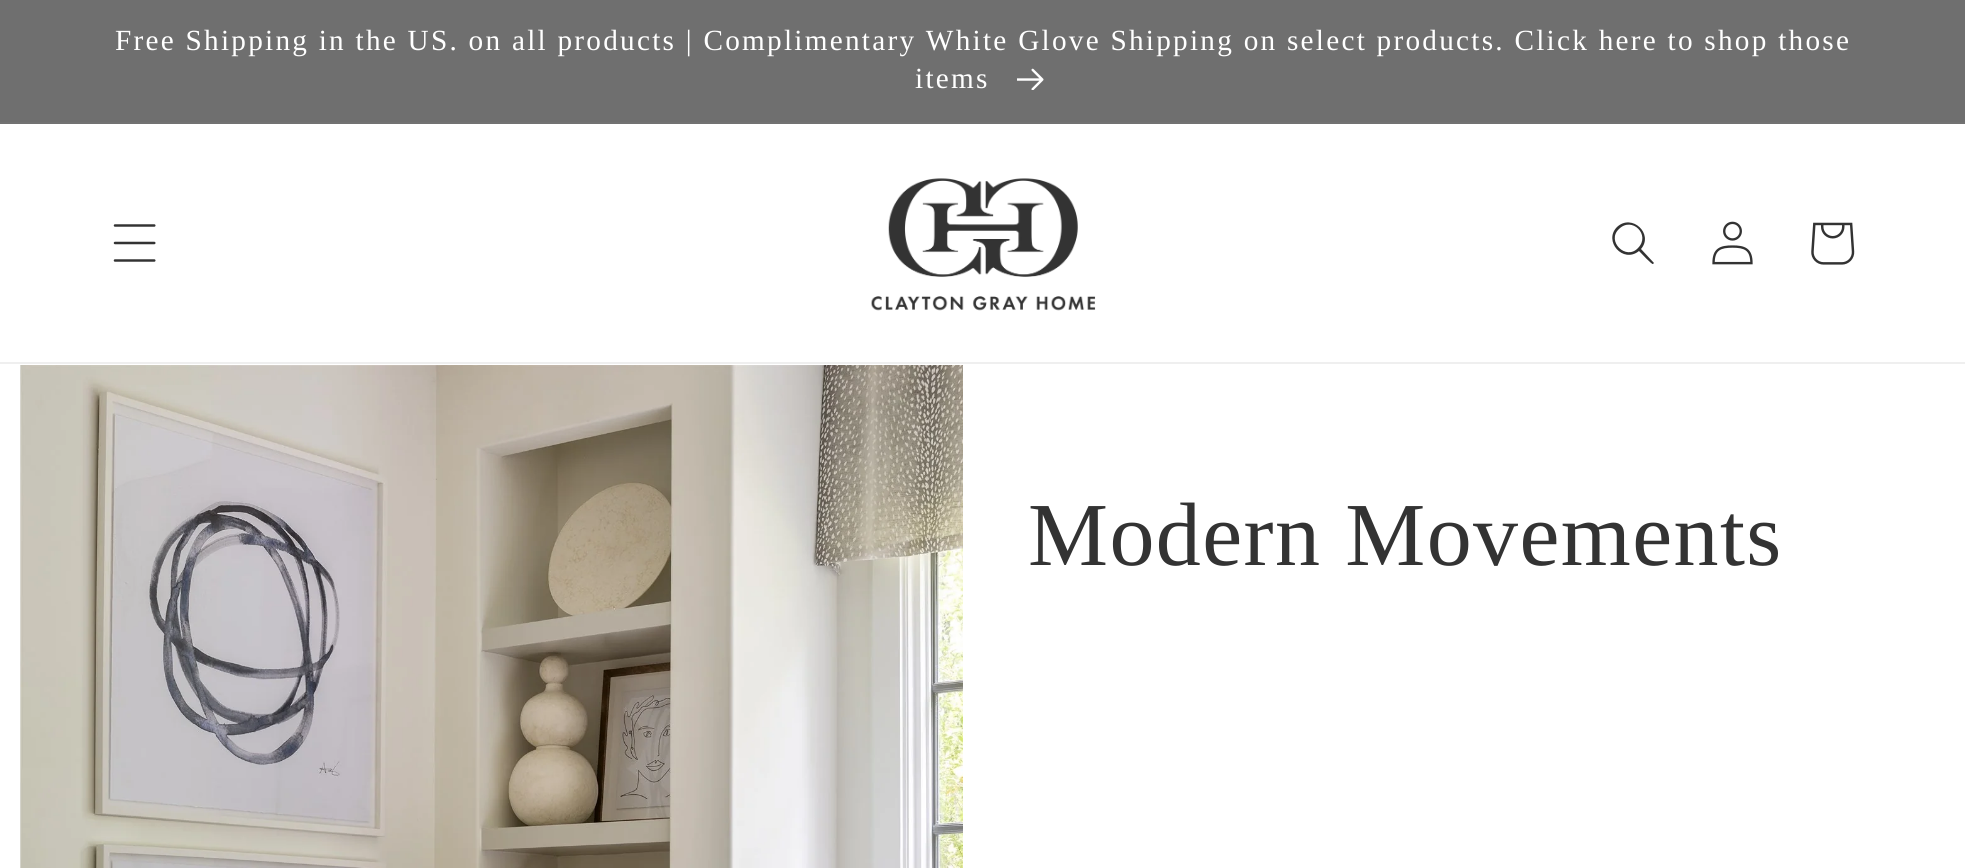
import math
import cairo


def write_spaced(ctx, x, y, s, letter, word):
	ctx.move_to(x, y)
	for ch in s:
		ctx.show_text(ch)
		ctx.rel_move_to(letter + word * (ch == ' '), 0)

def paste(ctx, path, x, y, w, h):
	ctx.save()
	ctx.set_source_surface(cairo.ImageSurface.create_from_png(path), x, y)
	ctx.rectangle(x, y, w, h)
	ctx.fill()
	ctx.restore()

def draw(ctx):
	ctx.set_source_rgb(1, 1, 1)
	ctx.paint()
	ctx.set_source_rgb(0.447, 0.447, 0.447)
	ctx.rectangle(0, 122, 1965, 2)
	ctx.fill()
	ctx.set_source_rgb(0.435, 0.435, 0.435)
	ctx.rectangle(0, 0, 1965, 122)
	ctx.fill()
	ctx.select_font_face('Liberation Serif')
	ctx.set_font_size(29.25)
	ctx.set_source_rgb(1, 1, 1)
	write_spaced(ctx, 115, 50, 'Free Shipping in the US. on all products | Complimentary White Glove Shipping on select products. Click here to shop those', 2.25, 0)
	write_spaced(ctx, 915, 88, 'items', 2.25, 0)
	paste(ctx, 'media/1.png', 1017, 68, 27, 22)
	ctx.set_source_rgb(0.937, 0.937, 0.937)
	ctx.rectangle(0, 362, 1965, 2)
	ctx.fill()
	paste(ctx, 'media/2.png', 113, 224, 43, 38)
	paste(ctx, 'media/3.png', 871, 178, 225, 133)
	ctx.set_source_rgb(0.2, 0.2, 0.2)
	ctx.set_fill_rule(cairo.FILL_RULE_EVEN_ODD)
	ctx.new_path()
	ctx.move_to(1638, 248)
	ctx.curve_to(1626, 261, 1606, 241, 1619, 229)
	ctx.curve_to(1632, 216, 1651, 235, 1638, 248)
	ctx.close_path()
	ctx.move_to(1639, 251)
	ctx.curve_to(1623, 264, 1603, 241, 1617, 227)
	ctx.curve_to(1632, 213, 1654, 234, 1641, 249)
	ctx.line_to(1654, 263)
	ctx.line_to(1653, 264)
	ctx.curve_to(1652, 265, 1641, 253, 1639, 251)
	ctx.close_path()
	ctx.fill()
	paste(ctx, 'media/4.png', 1712, 221, 41, 44)
	paste(ctx, 'media/5.png', 1811, 222, 44, 43)
	ctx.set_source_rgb(0.922, 0.922, 0.922)
	ctx.rectangle(20, 365, 1, 503)
	ctx.fill()
	paste(ctx, 'media/6.png', 20, 365, 943, 503)
	ctx.set_font_size(90)
	ctx.set_source_rgb(0.2, 0.2, 0.2)
	write_spaced(ctx, 1028, 565, 'Modern Movements', 1.4, 0)


surface = cairo.ImageSurface(cairo.FORMAT_RGB24, 1965, 868)
ctx = cairo.Context(surface)
options = cairo.FontOptions()
options.set_hint_metrics(cairo.HINT_METRICS_OFF)
options.set_hint_style(cairo.HINT_STYLE_NONE)
ctx.set_font_options(options)
ctx.set_miter_limit(4)
draw(ctx)
surface.write_to_png('image.png')
